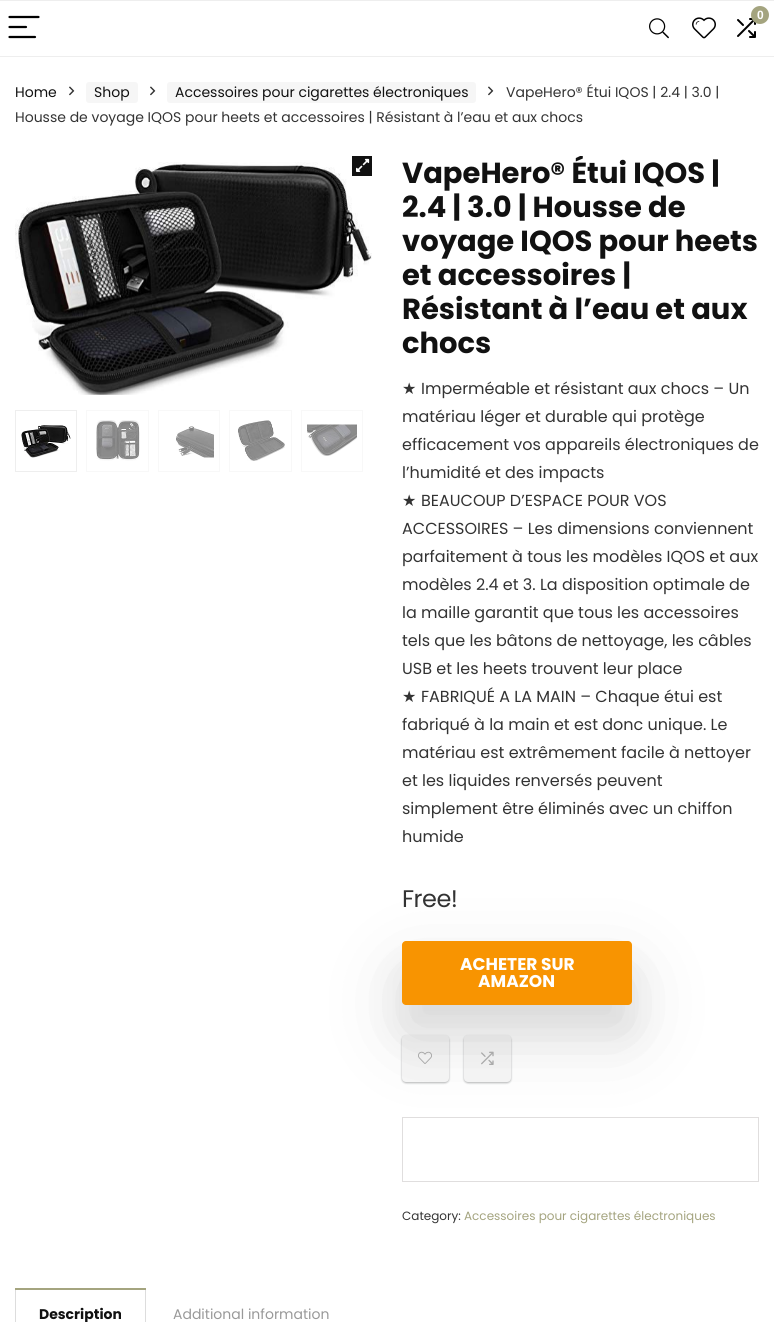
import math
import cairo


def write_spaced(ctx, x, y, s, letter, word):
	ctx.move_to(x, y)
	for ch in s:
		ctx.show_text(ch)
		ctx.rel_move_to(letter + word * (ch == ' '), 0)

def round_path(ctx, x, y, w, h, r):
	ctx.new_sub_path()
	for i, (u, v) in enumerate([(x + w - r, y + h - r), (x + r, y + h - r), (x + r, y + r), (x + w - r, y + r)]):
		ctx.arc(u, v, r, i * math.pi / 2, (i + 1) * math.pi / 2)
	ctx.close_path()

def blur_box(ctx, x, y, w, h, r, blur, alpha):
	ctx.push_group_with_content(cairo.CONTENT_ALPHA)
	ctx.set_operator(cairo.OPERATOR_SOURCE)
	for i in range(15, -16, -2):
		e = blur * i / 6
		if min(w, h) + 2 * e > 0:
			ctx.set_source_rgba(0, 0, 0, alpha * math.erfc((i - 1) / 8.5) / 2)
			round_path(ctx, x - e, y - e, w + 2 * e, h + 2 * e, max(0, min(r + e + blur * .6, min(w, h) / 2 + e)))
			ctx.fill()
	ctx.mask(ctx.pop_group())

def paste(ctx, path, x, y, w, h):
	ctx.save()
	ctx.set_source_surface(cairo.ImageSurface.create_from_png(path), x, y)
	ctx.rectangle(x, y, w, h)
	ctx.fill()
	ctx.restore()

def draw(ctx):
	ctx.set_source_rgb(1, 1, 1)
	ctx.paint()
	ctx.set_source_rgb(0.933, 0.933, 0.933)
	ctx.rectangle(0, 0, 774, 1)
	ctx.fill()
	ctx.rectangle(0, 56, 774, 1)
	ctx.fill()
	ctx.new_path()
	ctx.move_to(9.5, 17)
	ctx.line_to(38.5, 17)
	ctx.move_to(9.5, 27)
	ctx.line_to(26, 27)
	ctx.move_to(9.5, 37)
	ctx.line_to(35, 37)
	ctx.set_source_rgb(0, 0, 0)
	ctx.set_line_width(2.2)
	ctx.set_line_cap(cairo.LINE_CAP_ROUND)
	ctx.stroke()
	paste(ctx, 'media/1.png', 737, 18, 19, 20)
	ctx.set_source_rgb(0.643, 0.643, 0.498)
	ctx.arc(760, 15, 9, 0, 2 * math.pi)
	ctx.fill()
	ctx.select_font_face('Liberation Sans', cairo.FONT_SLANT_NORMAL, cairo.FONT_WEIGHT_BOLD)
	ctx.set_font_size(12)
	ctx.set_source_rgb(1, 1, 1)
	ctx.move_to(757, 19)
	ctx.show_text('0')
	paste(ctx, 'media/2.png', 649, 18, 20, 21)
	paste(ctx, 'media/3.png', 692, 17, 24, 22)
	ctx.select_font_face('Poppins')
	ctx.set_font_size(14)
	ctx.set_source_rgb(0.067, 0.067, 0.067)
	ctx.move_to(15, 97)
	ctx.show_text('Home')
	paste(ctx, 'media/4.png', 69, 86, 6, 10)
	ctx.set_source_rgb(0.961, 0.961, 0.961)
	round_path(ctx, 86, 82, 52, 21, 3)
	ctx.fill()
	ctx.set_source_rgb(0.067, 0.067, 0.067)
	ctx.move_to(94, 97)
	ctx.show_text('Shop')
	paste(ctx, 'media/4.png', 150, 86, 6, 10)
	ctx.set_source_rgb(0.961, 0.961, 0.961)
	round_path(ctx, 167, 82, 309, 21, 3)
	ctx.fill()
	ctx.set_source_rgb(0.067, 0.067, 0.067)
	ctx.move_to(175, 97)
	ctx.show_text('Accessoires pour cigarettes électroniques')
	paste(ctx, 'media/4.png', 488, 86, 6, 10)
	ctx.set_source_rgb(0.2, 0.2, 0.2)
	ctx.move_to(506, 97)
	ctx.show_text('VapeHero® Étui IQOS | 2.4 | 3.0 |')
	ctx.move_to(15, 122)
	ctx.show_text('Housse de voyage IQOS pour heets et accessoires | Résistant à l’eau et aux chocs')
	paste(ctx, 'media/6.png', 15, 162, 357, 233)
	ctx.set_source_rgb(0.067, 0.067, 0.067)
	ctx.rectangle(352, 156, 20, 20)
	ctx.fill()
	paste(ctx, 'media/5.png', 356, 158, 14, 14)
	ctx.rectangle(15.5, 410.5, 61, 61)
	ctx.set_source_rgb(0.933, 0.933, 0.933)
	ctx.set_line_width(1)
	ctx.set_line_cap(cairo.LINE_CAP_BUTT)
	ctx.stroke()
	paste(ctx, 'media/7.png', 21, 425, 50, 33)
	ctx.rectangle(86.5, 410.5, 62, 61)
	ctx.set_source_rgb(0.969, 0.969, 0.969)
	ctx.stroke()
	paste(ctx, 'media/8.png', 96, 420, 44, 41)
	ctx.rectangle(158.5, 410.5, 61, 61)
	ctx.stroke()
	paste(ctx, 'media/9.png', 176, 426, 38, 32)
	ctx.rectangle(229.5, 410.5, 62, 61)
	ctx.stroke()
	paste(ctx, 'media/10.png', 238, 420, 47, 41)
	ctx.rectangle(301.5, 410.5, 61, 61)
	ctx.stroke()
	paste(ctx, 'media/11.png', 307, 424, 50, 32)
	ctx.save()
	ctx.rectangle(402, 156, 357, 219)
	ctx.clip()
	ctx.select_font_face('Poppins', cairo.FONT_SLANT_NORMAL, cairo.FONT_WEIGHT_BOLD)
	ctx.set_font_size(29)
	ctx.set_source_rgb(0.067, 0.067, 0.067)
	ctx.move_to(402, 183)
	ctx.show_text('VapeHero® Étui IQOS |')
	ctx.restore()
	ctx.select_font_face('Poppins', cairo.FONT_SLANT_NORMAL, cairo.FONT_WEIGHT_BOLD)
	ctx.set_font_size(29)
	ctx.set_source_rgb(0.067, 0.067, 0.067)
	for x, y, s in [
		(402, 217, '2.4 | 3.0 | Housse de'),
		(402, 251, 'voyage IQOS pour heets'),
		(402, 285, 'et accessoires |'),
		(402, 319, 'Résistant à l’eau et aux'),
		(402, 353, 'chocs'),
	]:
		ctx.move_to(x, y)
		ctx.show_text(s)
	ctx.select_font_face('DejaVu Sans')
	ctx.set_font_size(16)
	ctx.set_source_rgb(0.2, 0.2, 0.2)
	ctx.move_to(402, 394)
	ctx.show_text('★')
	ctx.select_font_face('Poppins')
	for x, y, s in [
		(421, 394, 'Imperméable et résistant aux chocs – Un'),
		(402, 422, 'matériau léger et durable qui protège'),
		(402, 450, 'efficacement vos appareils électroniques de'),
		(402, 478, 'l’humidité et des impacts'),
	]:
		ctx.move_to(x, y)
		ctx.show_text(s)
	ctx.select_font_face('DejaVu Sans')
	ctx.move_to(402, 506)
	ctx.show_text('★')
	ctx.select_font_face('Poppins')
	for x, y, s in [
		(421, 506, 'BEAUCOUP D’ESPACE POUR VOS'),
		(402, 534, 'ACCESSOIRES – Les dimensions conviennent'),
		(402, 562, 'parfaitement à tous les modèles IQOS et aux'),
		(402, 590, 'modèles 2.4 et 3. La disposition optimale de'),
		(402, 618, 'la maille garantit que tous les accessoires'),
		(402, 646, 'tels que les bâtons de nettoyage, les câbles'),
		(402, 674, 'USB et les heets trouvent leur place'),
	]:
		ctx.move_to(x, y)
		ctx.show_text(s)
	ctx.select_font_face('DejaVu Sans')
	ctx.move_to(402, 702)
	ctx.show_text('★')
	ctx.select_font_face('Poppins')
	for x, y, s in [
		(421, 702, 'FABRIQUÉ A LA MAIN – Chaque étui est'),
		(402, 730, 'fabriqué à la main et est donc unique. Le'),
		(402, 758, 'matériau est extrêmement facile à nettoyer'),
		(402, 786, 'et les liquides renversés peuvent'),
		(402, 814, 'simplement être éliminés avec un chiffon'),
		(402, 842, 'humide'),
	]:
		ctx.move_to(x, y)
		ctx.show_text(s)
	ctx.set_font_size(24)
	write_spaced(ctx, 402, 907, 'Free!', -0.5, 0)
	ctx.set_source_rgb(0, 0, 0)
	blur_box(ctx, 402, 1036, 47, 47, 4, 1, 0.08)
	ctx.set_source_rgb(0.235, 0.251, 0.263)
	blur_box(ctx, 402, 1036, 47, 47, 4, 1, 0.3)
	ctx.set_source_rgb(0.965, 0.965, 0.965)
	round_path(ctx, 402, 1035, 47, 47, 4)
	ctx.fill()
	paste(ctx, 'media/12.png', 418, 1051, 14, 13)
	ctx.set_source_rgb(0, 0, 0)
	blur_box(ctx, 464, 1036, 47, 47, 4, 1, 0.08)
	ctx.set_source_rgb(0.235, 0.251, 0.263)
	blur_box(ctx, 464, 1036, 47, 47, 4, 1, 0.3)
	ctx.set_source_rgb(0.965, 0.965, 0.965)
	round_path(ctx, 464, 1035, 47, 47, 4)
	ctx.fill()
	ctx.set_source_rgb(0, 0, 0)
	blur_box(ctx, 402, 971, 230, 64, 4, 40, 0.12)
	blur_box(ctx, 402, 969, 230, 64, 4, 19, 0.06)
	ctx.set_source_rgb(0.969, 0.58, 0.004)
	round_path(ctx, 402, 941, 230, 64, 4)
	ctx.fill()
	ctx.select_font_face('Poppins', cairo.FONT_SLANT_NORMAL, cairo.FONT_WEIGHT_BOLD)
	ctx.set_font_size(17)
	ctx.set_source_rgb(1, 1, 1)
	ctx.move_to(460, 970)
	ctx.show_text('ACHETER SUR')
	ctx.move_to(478, 987)
	ctx.show_text('AMAZON')
	paste(ctx, 'media/13.png', 481, 1051, 13, 14)
	ctx.rectangle(402.5, 1117.5, 356, 64)
	ctx.set_source_rgb(0.878, 0.871, 0.871)
	ctx.stroke()
	ctx.select_font_face('Poppins')
	ctx.set_font_size(12)
	ctx.set_source_rgb(0.2, 0.2, 0.2)
	ctx.move_to(402, 1220)
	ctx.show_text('Category:')
	ctx.set_source_rgb(0.643, 0.643, 0.498)
	ctx.move_to(464, 1220)
	ctx.show_text('Accessoires pour cigarettes électroniques')
	ctx.rectangle(15, 1288, 131, 2)
	ctx.fill()
	ctx.set_source_rgb(0.867, 0.867, 0.867)
	ctx.rectangle(145, 1290, 1, 32)
	ctx.rectangle(15, 1290, 1, 32)
	ctx.fill()
	ctx.select_font_face('Poppins', cairo.FONT_SLANT_NORMAL, cairo.FONT_WEIGHT_BOLD)
	ctx.set_font_size(14)
	ctx.set_source_rgb(0.067, 0.067, 0.067)
	ctx.move_to(39, 1319)
	ctx.show_text('Description')
	ctx.select_font_face('Poppins')
	ctx.set_source_rgb(0.6, 0.6, 0.6)
	ctx.move_to(173, 1319)
	ctx.show_text('Additional information')


surface = cairo.ImageSurface(cairo.FORMAT_RGB24, 774, 1322)
ctx = cairo.Context(surface)
options = cairo.FontOptions()
options.set_hint_metrics(cairo.HINT_METRICS_OFF)
options.set_hint_style(cairo.HINT_STYLE_NONE)
ctx.set_font_options(options)
ctx.set_miter_limit(4)
draw(ctx)
surface.write_to_png('image.png')
